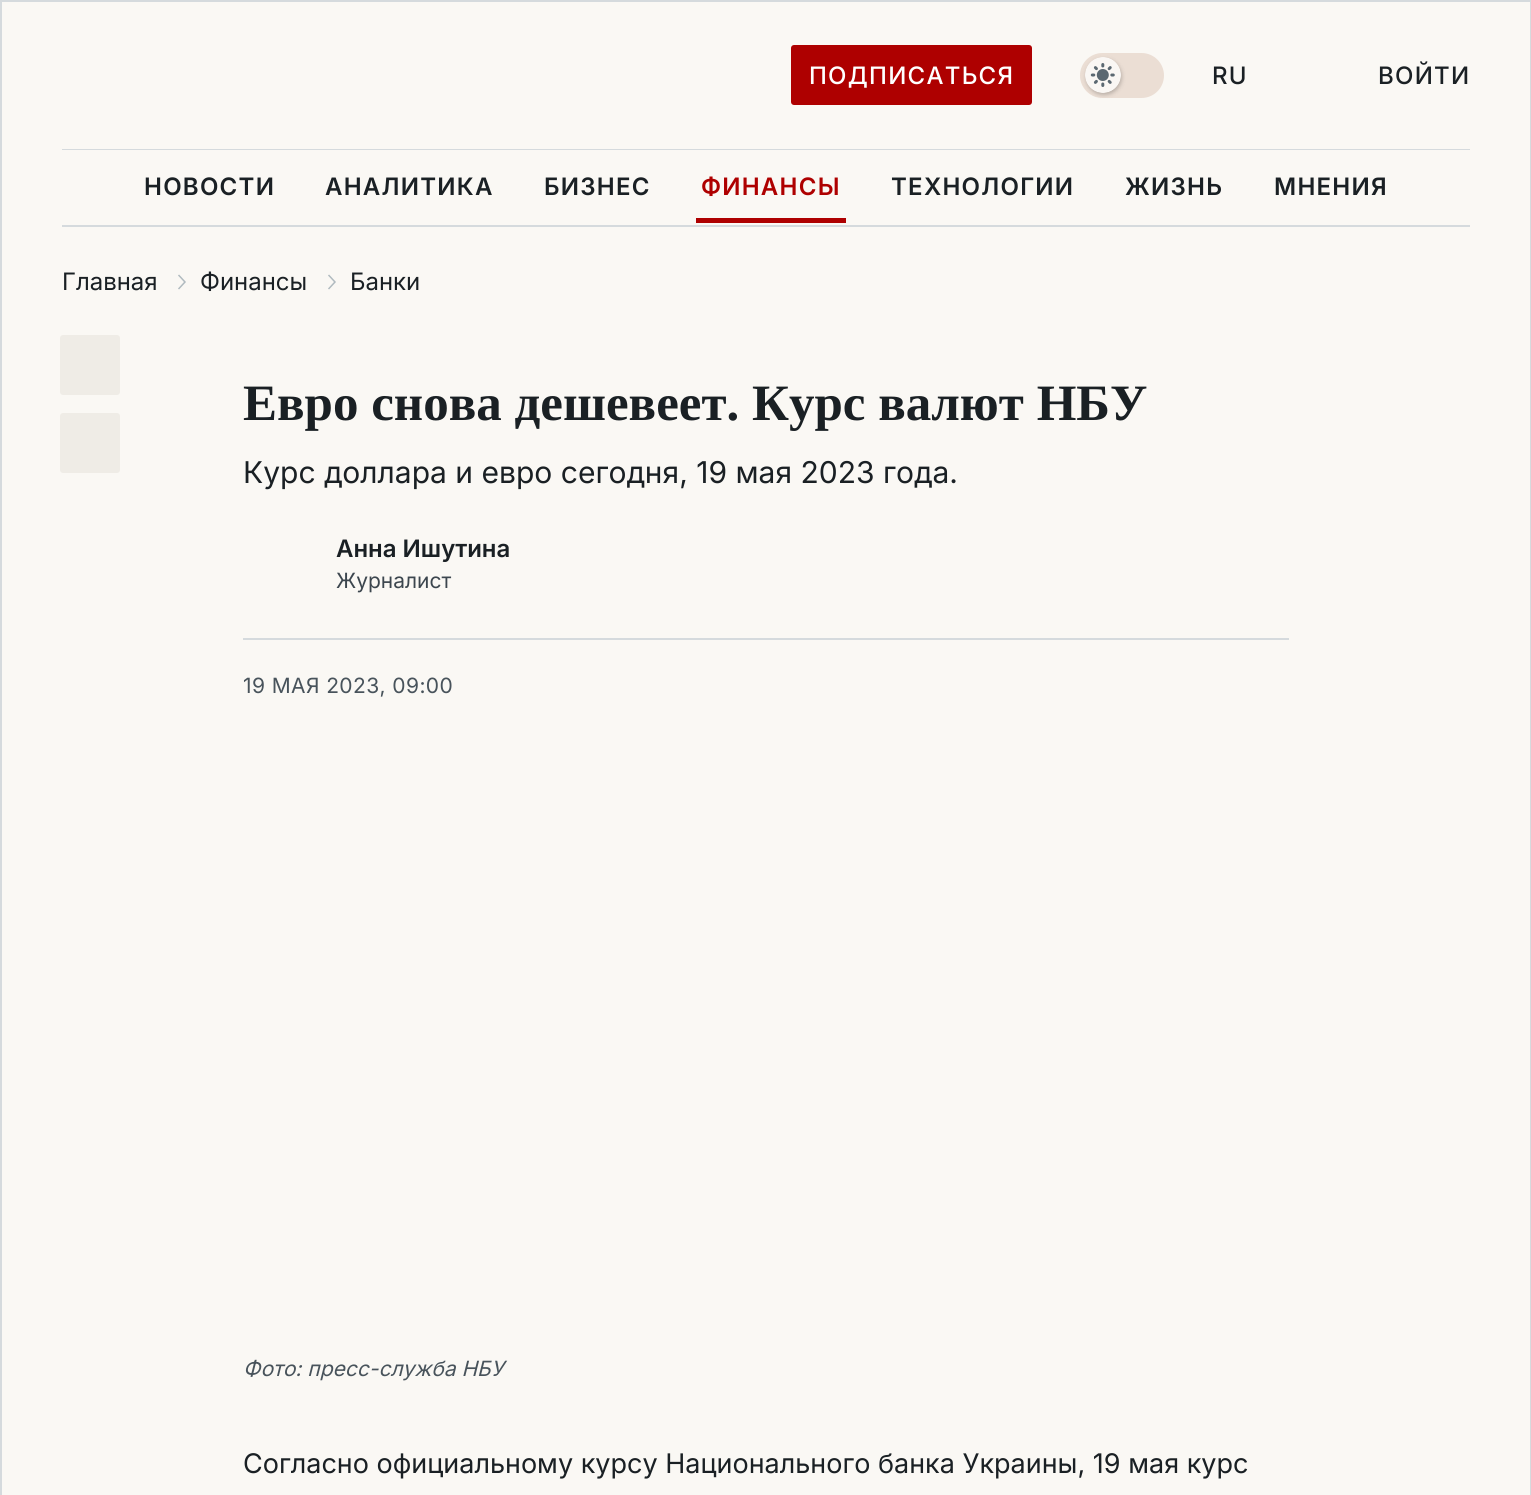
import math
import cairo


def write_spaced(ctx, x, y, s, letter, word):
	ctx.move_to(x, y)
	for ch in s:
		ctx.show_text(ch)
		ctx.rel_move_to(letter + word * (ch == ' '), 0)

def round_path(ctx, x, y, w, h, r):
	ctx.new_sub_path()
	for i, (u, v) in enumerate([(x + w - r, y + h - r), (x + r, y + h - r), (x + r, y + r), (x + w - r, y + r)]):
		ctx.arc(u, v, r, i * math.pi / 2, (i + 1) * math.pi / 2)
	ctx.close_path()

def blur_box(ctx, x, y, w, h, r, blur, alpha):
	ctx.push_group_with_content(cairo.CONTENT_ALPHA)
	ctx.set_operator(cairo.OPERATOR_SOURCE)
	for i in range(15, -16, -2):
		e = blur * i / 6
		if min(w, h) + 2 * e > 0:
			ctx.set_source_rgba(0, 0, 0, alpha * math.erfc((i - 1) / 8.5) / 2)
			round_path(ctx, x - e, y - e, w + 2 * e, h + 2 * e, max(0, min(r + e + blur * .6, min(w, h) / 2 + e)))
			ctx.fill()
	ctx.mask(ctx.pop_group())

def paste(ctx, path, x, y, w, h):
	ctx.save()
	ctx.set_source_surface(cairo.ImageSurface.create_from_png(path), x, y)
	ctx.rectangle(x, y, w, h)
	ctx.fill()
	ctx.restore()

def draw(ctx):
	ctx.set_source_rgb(0.98, 0.969, 0.957)
	ctx.paint()
	ctx.set_source_rgb(0.835, 0.855, 0.867)
	ctx.rectangle(0, 0, 1531, 2)
	ctx.rectangle(1530, 0, 1, 1495)
	ctx.rectangle(0, 0, 2, 1495)
	ctx.rectangle(62, 149, 1408, 1)
	ctx.fill()
	ctx.set_source_rgb(0.682, 0, 0)
	round_path(ctx, 791, 45, 241, 60, 3)
	ctx.fill()
	ctx.select_font_face('Inter Medium')
	ctx.set_font_size(24)
	ctx.set_source_rgb(1, 1, 1)
	write_spaced(ctx, 809, 84, 'ПОДПИСАТЬСЯ', 1.25, 0)
	ctx.set_source_rgb(0.918, 0.871, 0.831)
	round_path(ctx, 1080, 53, 84, 45, 22.5)
	ctx.fill()
	ctx.set_source_rgb(0, 0, 0)
	blur_box(ctx, 1086, 59, 36, 36, 18, 2, 0.2)
	paste(ctx, 'media/1.png', 1085, 57, 36, 36)
	ctx.set_source_rgb(0.102, 0.125, 0.141)
	write_spaced(ctx, 1212, 84, 'RU', 1.25, 0)
	write_spaced(ctx, 1378, 84, 'ВОЙТИ', 1.25, 0)
	ctx.set_source_rgb(0.835, 0.855, 0.867)
	ctx.rectangle(62, 225, 1408, 2)
	ctx.fill()
	ctx.select_font_face('Inter SemiBold')
	ctx.set_source_rgb(0.102, 0.125, 0.141)
	for x, y, s in [
		(144, 195, 'НОВОСТИ'),
		(325, 195, 'АНАЛИТИКА'),
		(544, 195, 'БИЗНЕС'),
	]:
		write_spaced(ctx, x, y, s, 1.25, 0)
	ctx.set_source_rgb(0.682, 0, 0)
	write_spaced(ctx, 701, 195, 'ФИНАНСЫ', 1.25, 0)
	ctx.rectangle(696, 218, 150, 5)
	ctx.fill()
	ctx.set_source_rgb(0.102, 0.125, 0.141)
	for x, y, s in [
		(891, 195, 'ТЕХНОЛОГИИ'),
		(1125, 195, 'ЖИЗНЬ'),
		(1274, 195, 'МНЕНИЯ'),
	]:
		write_spaced(ctx, x, y, s, 1.25, 0)
	ctx.select_font_face('Inter')
	ctx.move_to(62, 290)
	ctx.show_text('Главная')
	ctx.new_path()
	ctx.move_to(178.5, 275)
	ctx.line_to(185, 282)
	ctx.line_to(178.5, 289)
	ctx.set_source_rgb(0.69, 0.729, 0.749)
	ctx.set_line_width(1.5)
	ctx.stroke()
	ctx.set_source_rgb(0.102, 0.125, 0.141)
	ctx.move_to(200, 290)
	ctx.show_text('Финансы')
	ctx.new_path()
	ctx.move_to(328.5, 275)
	ctx.line_to(335, 282)
	ctx.line_to(328.5, 289)
	ctx.set_source_rgb(0.69, 0.729, 0.749)
	ctx.stroke()
	ctx.set_source_rgb(0.102, 0.125, 0.141)
	ctx.move_to(350, 290)
	ctx.show_text('Банки')
	ctx.set_source_rgb(0.937, 0.922, 0.902)
	round_path(ctx, 60, 335, 60, 60, 3)
	ctx.fill()
	round_path(ctx, 60, 413, 60, 60, 3)
	ctx.fill()
	ctx.select_font_face('Tinos', cairo.FONT_SLANT_NORMAL, cairo.FONT_WEIGHT_BOLD)
	ctx.set_font_size(51)
	ctx.set_source_rgb(0.102, 0.125, 0.141)
	ctx.move_to(243, 420)
	ctx.show_text('Евро снова дешевеет. Курс валют НБУ')
	ctx.select_font_face('Inter')
	ctx.set_font_size(30)
	ctx.move_to(243, 483)
	ctx.show_text('Курс доллара и евро сегодня, 19 мая 2023 года.')
	ctx.select_font_face('Inter SemiBold')
	ctx.set_font_size(24)
	ctx.move_to(336, 557)
	ctx.show_text('Анна Ишутина')
	ctx.select_font_face('Inter')
	ctx.set_font_size(21)
	ctx.set_source_rgb(0.235, 0.275, 0.306)
	ctx.move_to(336, 588)
	ctx.show_text('Журналист')
	ctx.set_source_rgb(0.835, 0.855, 0.867)
	ctx.rectangle(243, 638, 1046, 2)
	ctx.fill()
	ctx.set_source_rgb(0.282, 0.325, 0.357)
	write_spaced(ctx, 243, 693, '19 МАЯ 2023, 09:00', 0.4, 0)
	ctx.select_font_face('Inter', cairo.FONT_SLANT_ITALIC)
	ctx.move_to(243, 1376)
	ctx.show_text('Фото: пресс-служба НБУ')
	ctx.select_font_face('Inter')
	ctx.set_font_size(27)
	ctx.set_source_rgb(0.102, 0.125, 0.141)
	ctx.move_to(243, 1473)
	ctx.show_text('Согласно официальному курсу Национального банка Украины, 19 мая курс')


surface = cairo.ImageSurface(cairo.FORMAT_RGB24, 1531, 1495)
ctx = cairo.Context(surface)
options = cairo.FontOptions()
options.set_hint_metrics(cairo.HINT_METRICS_OFF)
options.set_hint_style(cairo.HINT_STYLE_NONE)
ctx.set_font_options(options)
ctx.set_miter_limit(4)
draw(ctx)
surface.write_to_png('image.png')
